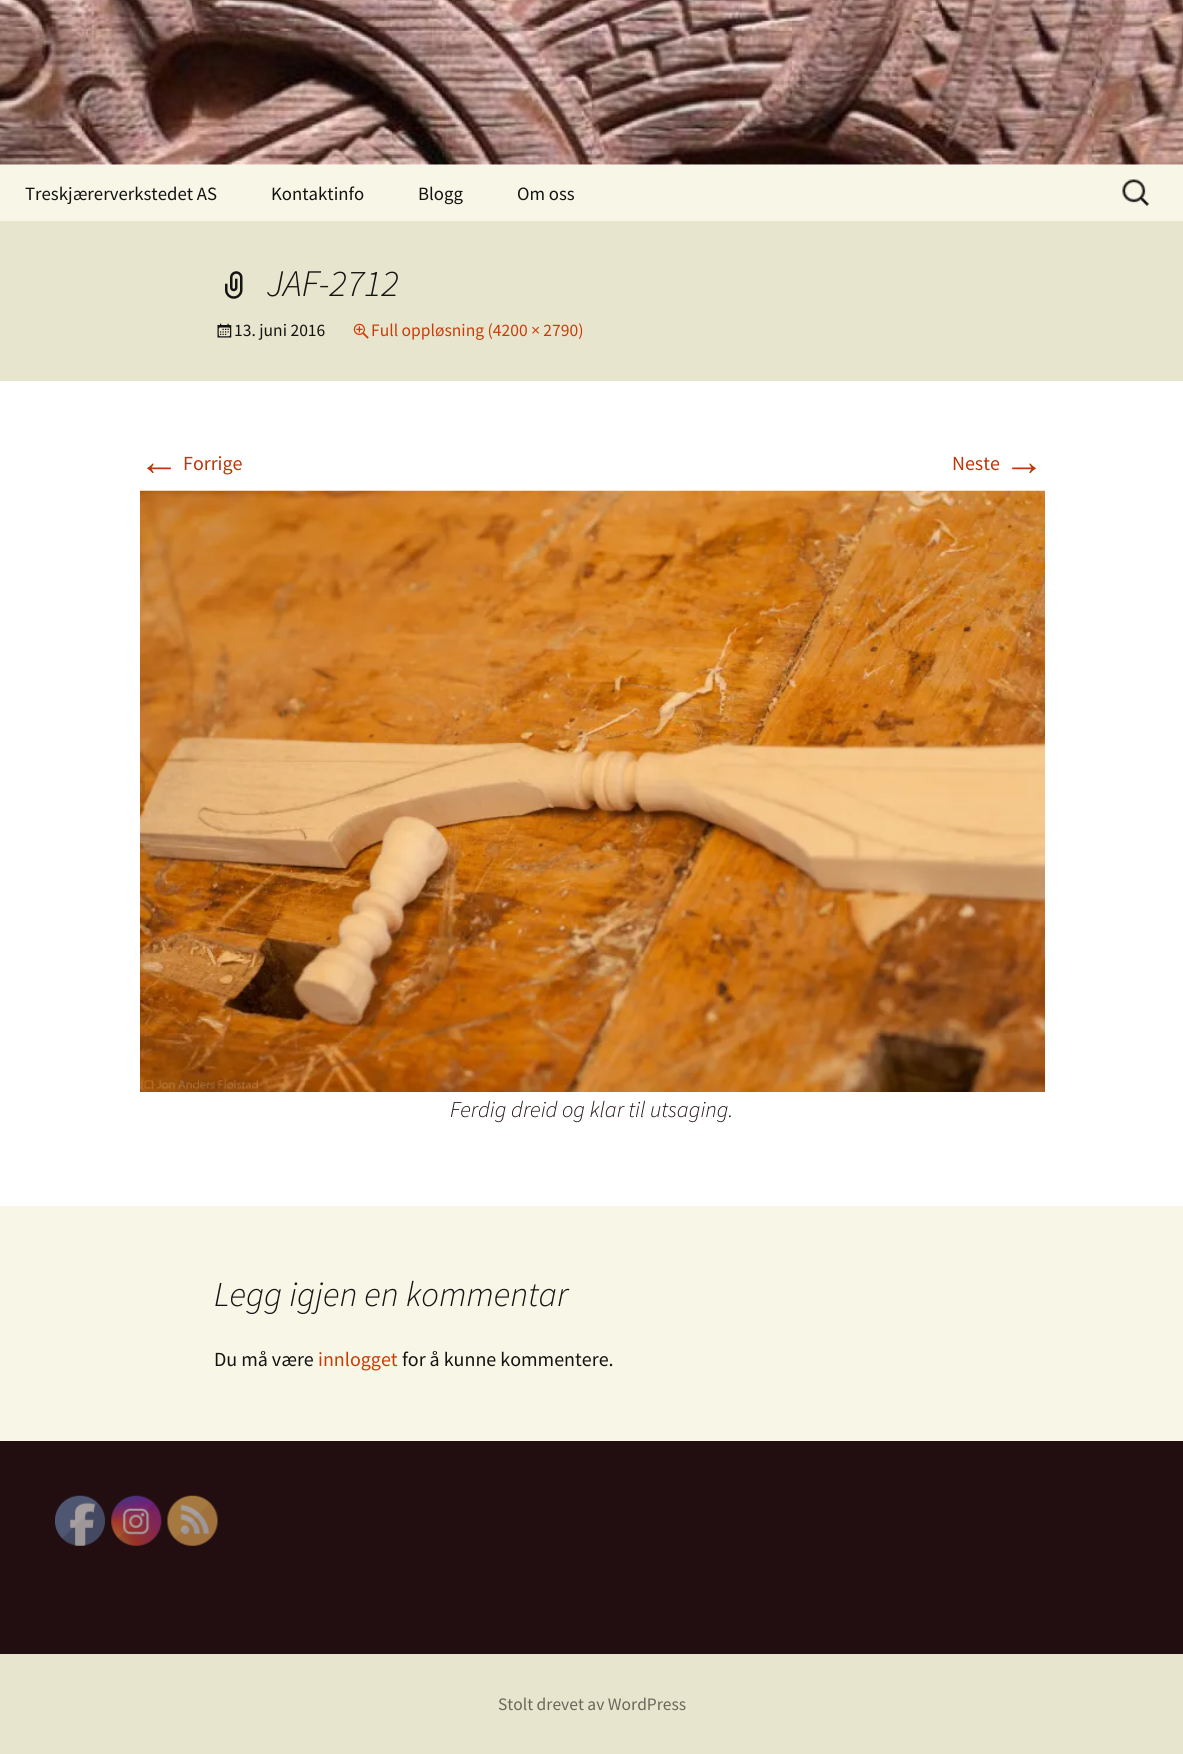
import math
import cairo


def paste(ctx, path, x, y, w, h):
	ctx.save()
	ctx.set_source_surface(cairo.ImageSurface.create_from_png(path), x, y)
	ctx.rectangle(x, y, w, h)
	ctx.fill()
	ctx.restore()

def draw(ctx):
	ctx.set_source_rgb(1, 1, 1)
	ctx.paint()
	paste(ctx, 'media/1.png', 0, 0, 1183, 165)
	ctx.set_source_rgb(0.969, 0.961, 0.906)
	ctx.rectangle(0, 165, 1183, 56)
	ctx.fill()
	ctx.select_font_face('Source Sans Pro')
	ctx.set_font_size(18.75)
	ctx.set_source_rgb(0.078, 0.078, 0.071)
	for x, y, s in [
		(25, 200, 'Treskjærerverkstedet AS'),
		(271, 200, 'Kontaktinfo'),
		(418, 200, 'Blogg'),
		(517, 200, 'Om oss'),
	]:
		ctx.move_to(x, y)
		ctx.show_text(s)
	paste(ctx, 'media/2.png', 1122, 179, 27, 27)
	ctx.set_source_rgb(0.91, 0.898, 0.808)
	ctx.rectangle(0, 221, 1183, 160)
	ctx.fill()
	paste(ctx, 'media/3.png', 225, 271, 18, 28)
	ctx.select_font_face('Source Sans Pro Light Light', cairo.FONT_SLANT_ITALIC)
	ctx.set_font_size(37.5)
	ctx.set_source_rgb(0.078, 0.078, 0.071)
	ctx.move_to(267, 296)
	ctx.show_text('JAF-2712')
	paste(ctx, 'media/4.png', 217, 323, 15, 15)
	ctx.select_font_face('Source Sans Pro')
	ctx.set_font_size(17.5)
	ctx.move_to(234, 336)
	ctx.show_text('13. juni 2016')
	paste(ctx, 'media/5.png', 353, 323, 16, 16)
	ctx.set_source_rgb(0.792, 0.235, 0.031)
	ctx.move_to(371, 336)
	ctx.show_text('Full oppløsning (4200 × 2790)')
	ctx.select_font_face('Liberation Sans')
	ctx.set_font_size(40)
	ctx.set_source_rgb(0.737, 0.212, 0.039)
	ctx.move_to(139, 475)
	ctx.show_text('←')
	ctx.select_font_face('Source Sans Pro')
	ctx.set_font_size(20)
	ctx.move_to(183, 470)
	ctx.show_text('Forrige')
	ctx.move_to(952, 470)
	ctx.show_text('Neste')
	ctx.select_font_face('Liberation Sans')
	ctx.set_font_size(40)
	ctx.move_to(1004, 475)
	ctx.show_text('→')
	paste(ctx, 'media/6.png', 140, 490, 905, 602)
	ctx.select_font_face('Source Sans Pro Light Light', cairo.FONT_SLANT_ITALIC)
	ctx.set_font_size(22.5)
	ctx.set_source_rgb(0.133, 0.055, 0.063)
	ctx.move_to(450, 1117)
	ctx.show_text('Ferdig dreid og klar til utsaging.')
	ctx.set_source_rgb(0.969, 0.961, 0.906)
	ctx.rectangle(0, 1206, 1183, 235)
	ctx.fill()
	ctx.set_font_size(35)
	ctx.set_source_rgb(0.078, 0.078, 0.071)
	ctx.move_to(214, 1306)
	ctx.show_text('Legg igjen en kommentar')
	ctx.select_font_face('Source Sans Pro')
	ctx.set_font_size(20)
	ctx.move_to(214, 1366)
	ctx.show_text('Du må være')
	ctx.set_source_rgb(0.792, 0.235, 0.031)
	ctx.move_to(318, 1366)
	ctx.show_text('innlogget')
	ctx.set_source_rgb(0.078, 0.078, 0.071)
	ctx.move_to(402, 1366)
	ctx.show_text('for å kunne kommentere.')
	ctx.set_source_rgb(0.91, 0.898, 0.808)
	ctx.rectangle(0, 1654, 1183, 100)
	ctx.fill()
	ctx.set_source_rgb(0.133, 0.055, 0.063)
	ctx.rectangle(0, 1441, 1183, 213)
	ctx.fill()
	paste(ctx, 'media/7.png', 55, 1495, 50, 51)
	paste(ctx, 'media/8.png', 111, 1495, 51, 51)
	paste(ctx, 'media/9.png', 167, 1495, 51, 51)
	ctx.set_font_size(17.5)
	ctx.set_source_rgb(0.408, 0.404, 0.345)
	ctx.move_to(498, 1710)
	ctx.show_text('Stolt drevet av WordPress')


surface = cairo.ImageSurface(cairo.FORMAT_RGB24, 1183, 1754)
ctx = cairo.Context(surface)
options = cairo.FontOptions()
options.set_hint_metrics(cairo.HINT_METRICS_OFF)
options.set_hint_style(cairo.HINT_STYLE_NONE)
ctx.set_font_options(options)
ctx.set_miter_limit(4)
draw(ctx)
surface.write_to_png('image.png')
